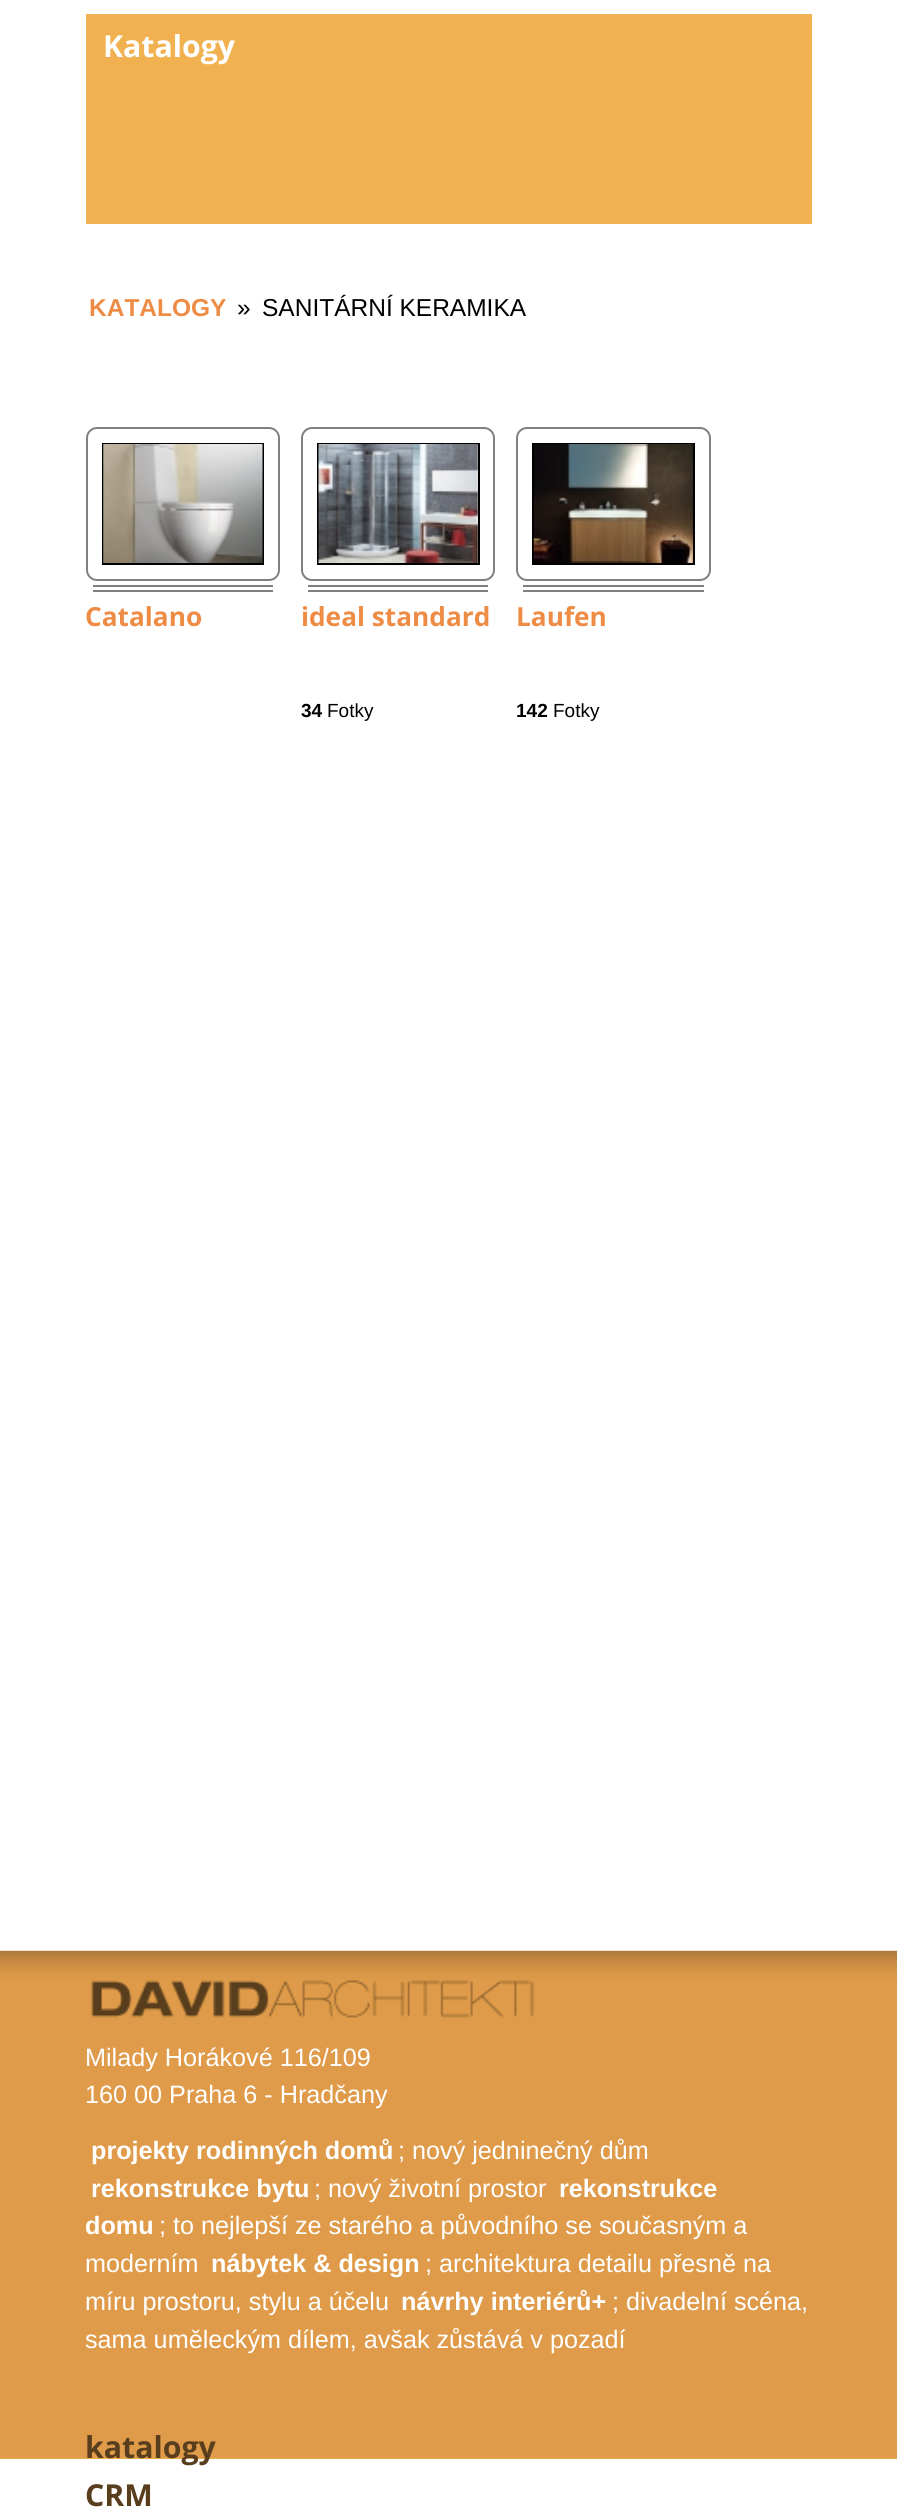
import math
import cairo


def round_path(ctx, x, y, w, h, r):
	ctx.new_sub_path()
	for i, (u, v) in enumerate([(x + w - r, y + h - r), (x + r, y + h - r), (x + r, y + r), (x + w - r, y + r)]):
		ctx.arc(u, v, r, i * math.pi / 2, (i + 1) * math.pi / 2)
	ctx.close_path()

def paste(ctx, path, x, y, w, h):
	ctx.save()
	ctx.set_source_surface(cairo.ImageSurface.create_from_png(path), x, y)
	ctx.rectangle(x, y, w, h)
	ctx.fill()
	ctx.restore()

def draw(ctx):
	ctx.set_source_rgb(1, 1, 1)
	ctx.paint()
	ctx.set_source_rgb(0.949, 0.694, 0.314)
	ctx.rectangle(86, 14, 726, 210)
	ctx.fill()
	ctx.select_font_face('Open Sans', cairo.FONT_SLANT_NORMAL, cairo.FONT_WEIGHT_BOLD)
	ctx.set_font_size(30.25)
	ctx.set_source_rgb(1, 1, 1)
	ctx.move_to(103, 57)
	ctx.show_text('Katalogy')
	ctx.select_font_face('Liberation Sans', cairo.FONT_SLANT_NORMAL, cairo.FONT_WEIGHT_BOLD)
	ctx.set_font_size(24.5)
	ctx.set_source_rgb(0.933, 0.549, 0.275)
	ctx.move_to(89, 316)
	ctx.show_text('KATALOGY')
	ctx.select_font_face('Liberation Sans')
	ctx.set_source_rgb(0, 0, 0)
	ctx.move_to(237, 316)
	ctx.show_text('»')
	ctx.move_to(262, 316)
	ctx.show_text('SANITÁRNÍ KERAMIKA')
	round_path(ctx, 87, 428, 192, 152, 10)
	ctx.set_source_rgb(0.502, 0.502, 0.502)
	ctx.stroke()
	ctx.rectangle(103, 444, 160, 120)
	ctx.set_source_rgb(0, 0, 0)
	ctx.stroke()
	paste(ctx, 'media/1.png', 103, 444, 160, 119)
	ctx.set_source_rgb(0.502, 0.502, 0.502)
	ctx.rectangle(93, 585, 180, 2)
	ctx.fill()
	ctx.rectangle(93, 590, 180, 2)
	ctx.fill()
	ctx.select_font_face('Open Sans', cairo.FONT_SLANT_NORMAL, cairo.FONT_WEIGHT_BOLD)
	ctx.set_font_size(26.25)
	ctx.set_source_rgb(0.933, 0.549, 0.275)
	ctx.move_to(85, 626)
	ctx.show_text('Catalano')
	round_path(ctx, 302, 428, 192, 152, 10)
	ctx.set_source_rgb(0.502, 0.502, 0.502)
	ctx.stroke()
	ctx.rectangle(318, 444, 161, 120)
	ctx.set_source_rgb(0, 0, 0)
	ctx.stroke()
	paste(ctx, 'media/2.png', 318, 444, 160, 119)
	ctx.set_source_rgb(0.502, 0.502, 0.502)
	ctx.rectangle(308, 585, 180, 2)
	ctx.fill()
	ctx.rectangle(308, 590, 180, 2)
	ctx.fill()
	ctx.set_source_rgb(0.933, 0.549, 0.275)
	ctx.move_to(301, 626)
	ctx.show_text('ideal standard')
	ctx.select_font_face('Liberation Sans', cairo.FONT_SLANT_NORMAL, cairo.FONT_WEIGHT_BOLD)
	ctx.set_font_size(19)
	ctx.set_source_rgb(0, 0, 0)
	ctx.move_to(301, 717)
	ctx.show_text('34')
	ctx.select_font_face('Liberation Sans')
	ctx.move_to(327, 717)
	ctx.show_text('Fotky')
	round_path(ctx, 517, 428, 193, 152, 10)
	ctx.set_source_rgb(0.502, 0.502, 0.502)
	ctx.stroke()
	ctx.rectangle(533, 444, 161, 120)
	ctx.set_source_rgb(0, 0, 0)
	ctx.stroke()
	paste(ctx, 'media/3.png', 533, 444, 160, 119)
	ctx.set_source_rgb(0.502, 0.502, 0.502)
	ctx.rectangle(523, 585, 181, 2)
	ctx.fill()
	ctx.rectangle(523, 590, 181, 2)
	ctx.fill()
	ctx.select_font_face('Open Sans', cairo.FONT_SLANT_NORMAL, cairo.FONT_WEIGHT_BOLD)
	ctx.set_font_size(26.25)
	ctx.set_source_rgb(0.933, 0.549, 0.275)
	ctx.move_to(516, 626)
	ctx.show_text('Laufen')
	ctx.select_font_face('Liberation Sans', cairo.FONT_SLANT_NORMAL, cairo.FONT_WEIGHT_BOLD)
	ctx.set_font_size(19)
	ctx.set_source_rgb(0, 0, 0)
	ctx.move_to(516, 717)
	ctx.show_text('142')
	ctx.select_font_face('Liberation Sans')
	ctx.move_to(553, 717)
	ctx.show_text('Fotky')
	ctx.set_source_rgb(0.949, 0.694, 0.314)
	ctx.rectangle(0, 2458, 897, 1)
	ctx.fill()
	paste(ctx, 'media/4.png', 0, 1950, 897, 509)
	paste(ctx, 'media/5.png', 90, 1980, 445, 38)
	ctx.set_font_size(25.2)
	ctx.set_source_rgb(1, 1, 1)
	ctx.move_to(85, 2066)
	ctx.show_text('Milady Horákové 116/109')
	ctx.move_to(85, 2103)
	ctx.show_text('160 00 Praha 6 - Hradčany')
	ctx.select_font_face('Liberation Sans', cairo.FONT_SLANT_NORMAL, cairo.FONT_WEIGHT_BOLD)
	ctx.move_to(91, 2159)
	ctx.show_text('projekty rodinných domů')
	ctx.select_font_face('Liberation Sans')
	ctx.move_to(398, 2159)
	ctx.show_text('; nový jedninečný dům')
	ctx.select_font_face('Liberation Sans', cairo.FONT_SLANT_NORMAL, cairo.FONT_WEIGHT_BOLD)
	ctx.move_to(91, 2197)
	ctx.show_text('rekonstrukce bytu')
	ctx.select_font_face('Liberation Sans')
	ctx.move_to(314, 2197)
	ctx.show_text('; nový životní prostor')
	ctx.select_font_face('Liberation Sans', cairo.FONT_SLANT_NORMAL, cairo.FONT_WEIGHT_BOLD)
	ctx.move_to(559, 2197)
	ctx.show_text('rekonstrukce')
	ctx.move_to(85, 2234)
	ctx.show_text('domu')
	ctx.select_font_face('Liberation Sans')
	ctx.move_to(159, 2234)
	ctx.show_text('; to nejlepší ze starého a původního se současným a')
	ctx.move_to(85, 2272)
	ctx.show_text('moderním')
	ctx.select_font_face('Liberation Sans', cairo.FONT_SLANT_NORMAL, cairo.FONT_WEIGHT_BOLD)
	ctx.move_to(211, 2272)
	ctx.show_text('nábytek & design')
	ctx.select_font_face('Liberation Sans')
	ctx.move_to(425, 2272)
	ctx.show_text('; architektura detailu přesně na')
	ctx.move_to(85, 2310)
	ctx.show_text('míru prostoru, stylu a účelu')
	ctx.select_font_face('Liberation Sans', cairo.FONT_SLANT_NORMAL, cairo.FONT_WEIGHT_BOLD)
	ctx.move_to(401, 2310)
	ctx.show_text('návrhy interiérů+')
	ctx.select_font_face('Liberation Sans')
	ctx.move_to(612, 2310)
	ctx.show_text('; divadelní scéna,')
	ctx.move_to(85, 2348)
	ctx.show_text('sama uměleckým dílem, avšak zůstává v pozadí')
	ctx.select_font_face('Open Sans', cairo.FONT_SLANT_NORMAL, cairo.FONT_WEIGHT_BOLD)
	ctx.set_font_size(30.25)
	ctx.set_source_rgb(0.349, 0.243, 0.114)
	ctx.move_to(85, 2458)
	ctx.show_text('katalogy')
	ctx.move_to(85, 2506)
	ctx.show_text('CRM')


surface = cairo.ImageSurface(cairo.FORMAT_RGB24, 897, 2514)
ctx = cairo.Context(surface)
options = cairo.FontOptions()
options.set_hint_metrics(cairo.HINT_METRICS_OFF)
options.set_hint_style(cairo.HINT_STYLE_NONE)
ctx.set_font_options(options)
ctx.set_miter_limit(4)
draw(ctx)
surface.write_to_png('image.png')
